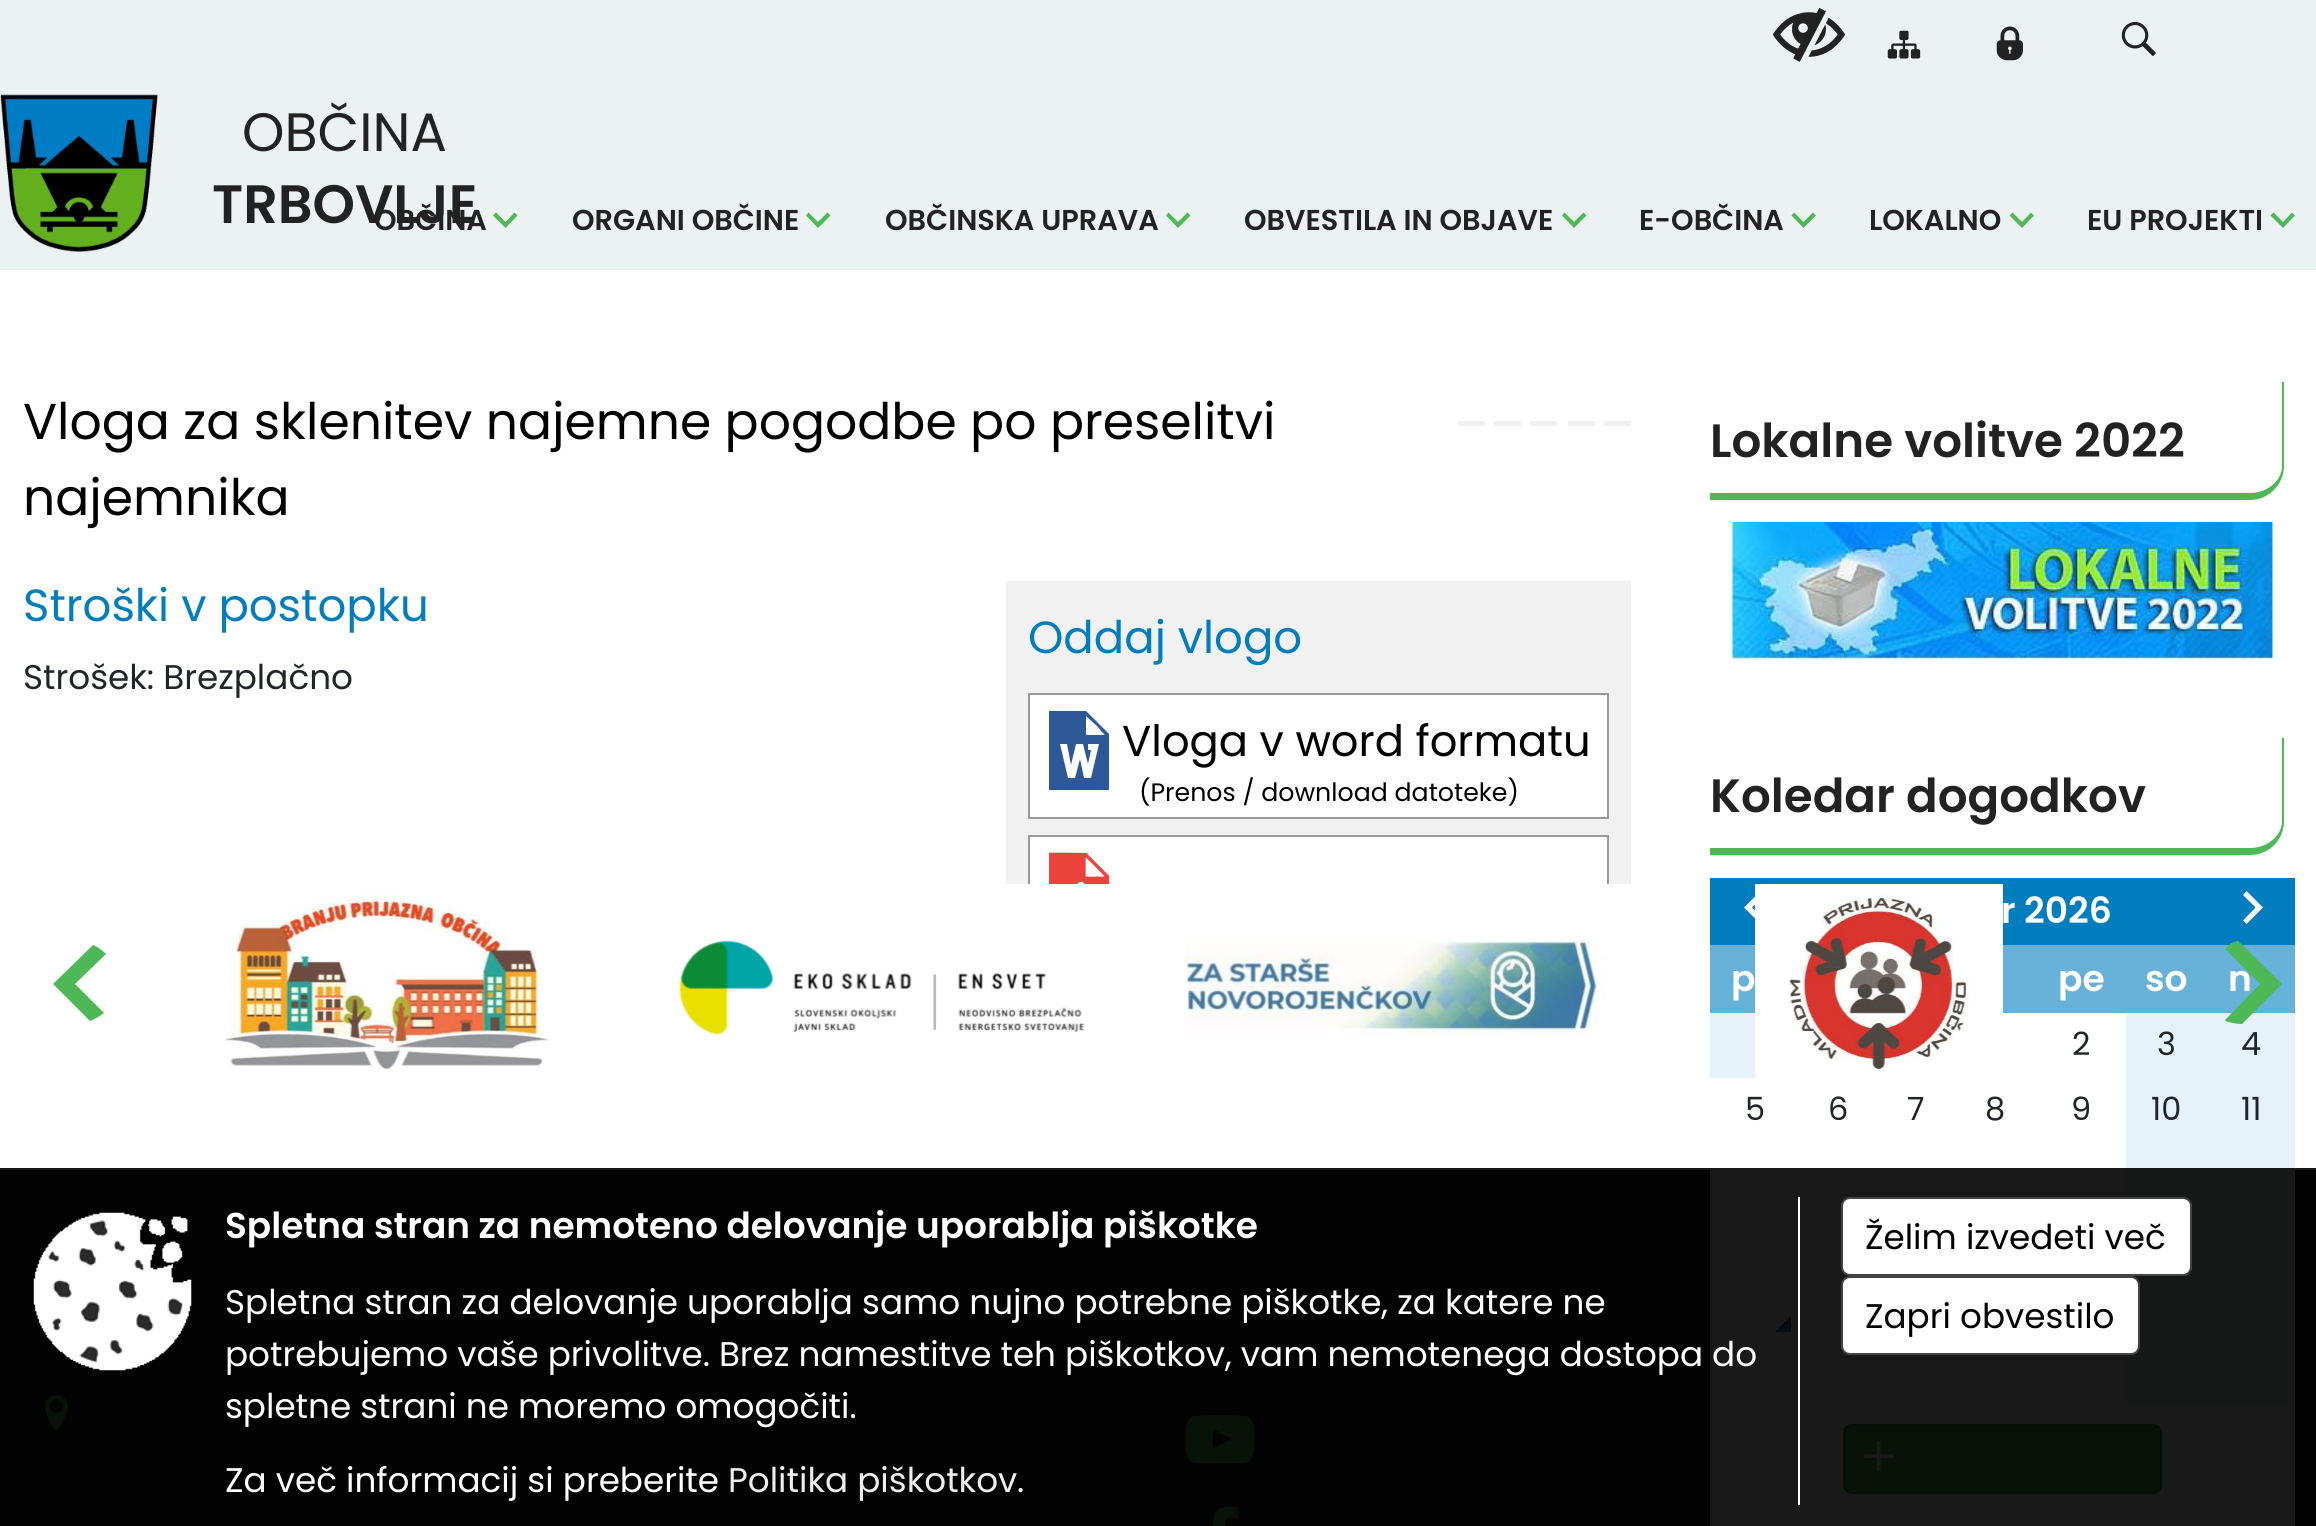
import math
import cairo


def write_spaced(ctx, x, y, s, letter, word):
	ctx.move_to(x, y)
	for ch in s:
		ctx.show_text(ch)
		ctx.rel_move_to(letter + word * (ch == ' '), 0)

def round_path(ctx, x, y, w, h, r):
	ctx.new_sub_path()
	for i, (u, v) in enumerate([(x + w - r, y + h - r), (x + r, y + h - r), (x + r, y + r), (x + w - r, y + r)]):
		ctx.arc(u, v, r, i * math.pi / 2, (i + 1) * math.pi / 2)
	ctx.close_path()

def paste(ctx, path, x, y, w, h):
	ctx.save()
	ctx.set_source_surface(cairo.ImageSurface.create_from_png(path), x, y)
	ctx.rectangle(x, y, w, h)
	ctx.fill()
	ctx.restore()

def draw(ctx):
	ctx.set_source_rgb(1, 1, 1)
	ctx.paint()
	ctx.set_source_rgb(0.925, 0.945, 0.949)
	ctx.rectangle(0, 0, 2316, 270)
	ctx.fill()
	paste(ctx, 'media/1.png', 1773, 8, 72, 54)
	paste(ctx, 'media/2.png', 1887, 30, 34, 29)
	paste(ctx, 'media/3.png', 1996, 26, 27, 35)
	paste(ctx, 'media/4.png', 2121, 21, 35, 36)
	paste(ctx, 'media/5.png', 0, 94, 158, 158)
	ctx.select_font_face('Poppins')
	ctx.set_font_size(54)
	ctx.set_source_rgb(0.133, 0.133, 0.133)
	ctx.move_to(242, 151)
	ctx.show_text('OBČINA')
	ctx.select_font_face('Poppins SemiBold')
	ctx.set_font_size(28.75)
	ctx.move_to(374, 230)
	ctx.show_text('OBČINA')
	ctx.set_font_size(54)
	ctx.move_to(212, 223)
	ctx.show_text('TRBOVLJE')
	ctx.set_source_rgb(0.306, 0.722, 0.341)
	ctx.new_path()
	ctx.move_to(496, 212.5)
	ctx.line_to(505.5, 222)
	ctx.line_to(514.5, 212.5)
	ctx.line_to(517.5, 215.5)
	ctx.line_to(505.5, 228)
	ctx.line_to(493, 215.5)
	ctx.close_path()
	ctx.fill()
	ctx.set_font_size(28.75)
	ctx.set_source_rgb(0.133, 0.133, 0.133)
	ctx.move_to(572, 230)
	ctx.show_text('ORGANI OBČINE')
	ctx.set_source_rgb(0.306, 0.722, 0.341)
	ctx.new_path()
	ctx.move_to(808.5, 212.5)
	ctx.line_to(818, 222)
	ctx.line_to(827.5, 212.5)
	ctx.line_to(830.5, 215.5)
	ctx.line_to(818, 228)
	ctx.line_to(806, 215.5)
	ctx.close_path()
	ctx.fill()
	ctx.set_source_rgb(0.133, 0.133, 0.133)
	ctx.move_to(885, 230)
	ctx.show_text('OBČINSKA UPRAVA')
	ctx.set_source_rgb(0.306, 0.722, 0.341)
	ctx.new_path()
	ctx.move_to(1168.5, 212.5)
	ctx.line_to(1178, 222)
	ctx.line_to(1187.5, 212.5)
	ctx.line_to(1190.5, 215.5)
	ctx.line_to(1178, 228)
	ctx.line_to(1166, 215.5)
	ctx.close_path()
	ctx.fill()
	ctx.set_source_rgb(0.133, 0.133, 0.133)
	ctx.move_to(1244, 230)
	ctx.show_text('OBVESTILA IN OBJAVE')
	ctx.set_source_rgb(0.306, 0.722, 0.341)
	ctx.new_path()
	ctx.move_to(1564.5, 212.5)
	ctx.line_to(1574, 222)
	ctx.line_to(1583.5, 212.5)
	ctx.line_to(1586.5, 215.5)
	ctx.line_to(1574, 228)
	ctx.line_to(1562, 215.5)
	ctx.close_path()
	ctx.fill()
	ctx.set_source_rgb(0.133, 0.133, 0.133)
	ctx.move_to(1639, 230)
	ctx.show_text('E-OBČINA')
	ctx.set_source_rgb(0.306, 0.722, 0.341)
	ctx.new_path()
	ctx.move_to(1794, 212.5)
	ctx.line_to(1803.5, 222)
	ctx.line_to(1813, 212.5)
	ctx.line_to(1816, 215.5)
	ctx.line_to(1803.5, 228)
	ctx.line_to(1791.5, 215.5)
	ctx.close_path()
	ctx.fill()
	ctx.set_source_rgb(0.133, 0.133, 0.133)
	ctx.move_to(1869, 230)
	ctx.show_text('LOKALNO')
	ctx.set_source_rgb(0.306, 0.722, 0.341)
	ctx.new_path()
	ctx.move_to(2012.5, 212.5)
	ctx.line_to(2022, 222)
	ctx.line_to(2031, 212.5)
	ctx.line_to(2034, 215.5)
	ctx.line_to(2022, 228)
	ctx.line_to(2009.5, 215.5)
	ctx.close_path()
	ctx.fill()
	ctx.set_source_rgb(0.133, 0.133, 0.133)
	ctx.move_to(2087, 230)
	ctx.show_text('EU PROJEKTI')
	ctx.set_source_rgb(0.306, 0.722, 0.341)
	ctx.new_path()
	ctx.move_to(2273.5, 212.5)
	ctx.line_to(2283, 222)
	ctx.line_to(2292, 212.5)
	ctx.line_to(2295, 215.5)
	ctx.line_to(2283, 228)
	ctx.line_to(2270.5, 215.5)
	ctx.close_path()
	ctx.fill()
	ctx.select_font_face('Poppins')
	ctx.set_font_size(50.4)
	ctx.set_source_rgb(0, 0, 0)
	ctx.move_to(23, 439)
	ctx.show_text('Vloga za sklenitev najemne pogodbe po preselitvi')
	ctx.move_to(23, 515)
	ctx.show_text('najemnika')
	ctx.set_source_rgb(0.937, 0.937, 0.937)
	ctx.rectangle(1458, 421, 27, 5)
	ctx.rectangle(1494, 421, 27, 5)
	ctx.rectangle(1530, 421, 27, 5)
	ctx.rectangle(1568, 421, 27, 5)
	ctx.rectangle(1604, 421, 27, 5)
	ctx.fill()
	ctx.set_font_size(45)
	ctx.set_source_rgb(0, 0.49, 0.745)
	ctx.move_to(23, 621)
	ctx.show_text('Stroški v postopku')
	ctx.set_font_size(34.2)
	ctx.set_source_rgb(0.129, 0.145, 0.161)
	ctx.move_to(23, 689)
	ctx.show_text('Strošek: Brezplačno')
	ctx.set_source_rgb(0.945, 0.945, 0.945)
	ctx.rectangle(1006, 581, 625, 303)
	ctx.fill()
	ctx.set_font_size(45)
	ctx.set_source_rgb(0, 0.49, 0.745)
	ctx.move_to(1028, 653)
	ctx.show_text('Oddaj vlogo')
	ctx.set_source_rgb(1, 1, 1)
	ctx.rectangle(1029, 694, 579, 124)
	ctx.fill_preserve()
	ctx.set_source_rgb(0.6, 0.6, 0.6)
	ctx.stroke()
	ctx.set_source_rgb(0.173, 0.345, 0.592)
	ctx.new_path()
	ctx.move_to(1049, 751)
	ctx.line_to(1049, 790)
	ctx.line_to(1109, 790)
	ctx.line_to(1109, 734)
	ctx.line_to(1086, 711)
	ctx.line_to(1049, 711)
	ctx.close_path()
	ctx.move_to(1097, 726)
	ctx.line_to(1102, 732)
	ctx.curve_to(1105, 735, 1106, 735, 1102, 735)
	ctx.line_to(1086, 735)
	ctx.line_to(1086, 716)
	ctx.close_path()
	ctx.move_to(1067, 744)
	ctx.line_to(1071, 765)
	ctx.line_to(1076, 744)
	ctx.line_to(1083, 744)
	ctx.line_to(1088, 764)
	ctx.line_to(1091, 750)
	ctx.line_to(1088, 750)
	ctx.line_to(1088, 744)
	ctx.line_to(1099, 744)
	ctx.line_to(1091, 778)
	ctx.line_to(1084, 778)
	ctx.line_to(1080, 759)
	ctx.line_to(1075, 778)
	ctx.line_to(1068, 778)
	ctx.line_to(1060, 744)
	ctx.close_path()
	ctx.fill()
	ctx.set_font_size(43.25)
	ctx.set_source_rgb(0, 0, 0)
	ctx.move_to(1122, 756)
	ctx.show_text('Vloga v word formatu')
	ctx.set_font_size(25.25)
	ctx.move_to(1139, 801)
	ctx.show_text('(Prenos / download datoteke)')
	ctx.set_source_rgb(1, 1, 1)
	ctx.rectangle(1030, 837, 577, 47)
	ctx.fill()
	ctx.rectangle(1029, 836, 579, 124)
	ctx.set_source_rgb(0.6, 0.6, 0.6)
	ctx.stroke()
	paste(ctx, 'media/6.png', 1049, 852, 61, 32)
	ctx.set_source_rgb(0.306, 0.722, 0.341)
	ctx.set_fill_rule(cairo.FILL_RULE_EVEN_ODD)
	ctx.new_path()
	ctx.move_to(1710, 382)
	ctx.line_to(2284, 382)
	ctx.line_to(2284, 466)
	ctx.curve_to(2284, 484, 2269, 500, 2250, 500)
	ctx.line_to(1710, 500)
	ctx.close_path()
	ctx.move_to(1710, 382)
	ctx.line_to(2282, 382)
	ctx.line_to(2282, 466)
	ctx.curve_to(2282, 481, 2267, 493, 2250, 493)
	ctx.line_to(1710, 493)
	ctx.close_path()
	ctx.fill()
	ctx.select_font_face('Poppins SemiBold')
	ctx.set_font_size(46.75)
	ctx.set_source_rgb(0.133, 0.133, 0.133)
	ctx.move_to(1710, 457)
	ctx.show_text('Lokalne volitve 2022')
	paste(ctx, 'media/7.png', 1732, 522, 541, 138)
	ctx.rectangle(0, 1170, 2316, 356)
	ctx.fill()
	ctx.set_source_rgb(1, 1, 1)
	ctx.rectangle(1710, 1170, 585, 356)
	ctx.fill()
	ctx.set_source_rgb(0.306, 0.722, 0.341)
	ctx.new_path()
	ctx.move_to(1710, 738)
	ctx.line_to(2284, 738)
	ctx.line_to(2284, 821)
	ctx.curve_to(2284, 840, 2269, 855, 2250, 855)
	ctx.line_to(1710, 855)
	ctx.close_path()
	ctx.move_to(1710, 738)
	ctx.line_to(2282, 738)
	ctx.line_to(2282, 821)
	ctx.curve_to(2282, 836, 2267, 848, 2250, 848)
	ctx.line_to(1710, 848)
	ctx.close_path()
	ctx.fill()
	ctx.set_source_rgb(0.133, 0.133, 0.133)
	ctx.move_to(1710, 812)
	ctx.show_text('Koledar dogodkov')
	ctx.set_source_rgb(0, 0.49, 0.745)
	ctx.rectangle(1710, 878, 585, 67)
	ctx.fill()
	ctx.set_source_rgb(1, 1, 1)
	ctx.set_fill_rule(cairo.FILL_RULE_WINDING)
	ctx.new_path()
	ctx.move_to(1764.5, 920.5)
	ctx.line_to(1760.5, 924)
	ctx.line_to(1744, 907.5)
	ctx.line_to(1760.5, 891)
	ctx.line_to(1764.5, 895)
	ctx.line_to(1752, 907.5)
	ctx.close_path()
	ctx.fill()
	ctx.set_font_size(36)
	ctx.move_to(2001, 923)
	ctx.show_text('r 2026')
	ctx.new_path()
	ctx.move_to(2243, 920.5)
	ctx.line_to(2255.5, 907.5)
	ctx.line_to(2243, 895)
	ctx.line_to(2246.5, 891)
	ctx.line_to(2263, 907.5)
	ctx.line_to(2246.5, 924)
	ctx.close_path()
	ctx.fill()
	ctx.set_source_rgb(0.4, 0.694, 0.847)
	ctx.rectangle(1710, 945, 585, 68)
	ctx.fill()
	ctx.set_source_rgb(1, 1, 1)
	for x, y, s in [
		(1731, 991, 'p'),
		(2058, 991, 'pe'),
		(2145, 991, 'so'),
		(2228, 991, 'n'),
	]:
		ctx.move_to(x, y)
		ctx.show_text(s)
	ctx.set_source_rgb(0.902, 0.949, 0.976)
	ctx.rectangle(1710, 1013, 45, 65)
	ctx.fill()
	ctx.select_font_face('Poppins')
	ctx.set_font_size(32)
	ctx.set_source_rgb(0.129, 0.145, 0.161)
	ctx.move_to(2072, 1055)
	ctx.show_text('2')
	ctx.set_source_rgb(0.902, 0.949, 0.976)
	ctx.rectangle(2126, 1013, 169, 65)
	ctx.fill()
	ctx.set_source_rgb(0.129, 0.145, 0.161)
	for x, y, s in [
		(2157, 1055, '3'),
		(2241, 1055, '4'),
		(1745, 1120, '5'),
		(1828, 1120, '6'),
		(1907, 1120, '7'),
		(1985, 1120, '8'),
		(2071, 1120, '9'),
	]:
		ctx.move_to(x, y)
		ctx.show_text(s)
	ctx.set_source_rgb(0.902, 0.949, 0.976)
	ctx.rectangle(2126, 1078, 169, 65)
	ctx.fill()
	ctx.set_source_rgb(0.129, 0.145, 0.161)
	ctx.move_to(2151, 1120)
	ctx.show_text('10')
	ctx.move_to(2241, 1120)
	ctx.show_text('11')
	ctx.set_source_rgb(0.902, 0.949, 0.976)
	ctx.rectangle(2126, 1143, 169, 65)
	ctx.fill()
	ctx.rectangle(2183, 1208, 112, 68)
	ctx.fill()
	ctx.set_source_rgb(0.2, 0.478, 0.718)
	ctx.new_path()
	ctx.move_to(1791, 1332)
	ctx.line_to(1775, 1332)
	ctx.line_to(1791, 1316)
	ctx.close_path()
	ctx.fill()
	ctx.set_source_rgb(0.902, 0.949, 0.976)
	ctx.rectangle(2131, 1276, 164, 65)
	ctx.fill()
	ctx.rectangle(2126, 1341, 169, 65)
	ctx.fill()
	ctx.set_source_rgb(0.306, 0.722, 0.341)
	round_path(ctx, 1844, 1425, 317, 68, 8)
	ctx.fill_preserve()
	ctx.set_source_rgb(0.235, 0.592, 0.267)
	ctx.stroke()
	paste(ctx, 'media/8.png', 1863, 1441, 31, 31)
	ctx.set_source_rgb(0.306, 0.722, 0.341)
	ctx.new_path()
	ctx.move_to(106, 954)
	ctx.line_to(75, 984)
	ctx.line_to(104, 1013)
	ctx.curve_to(100, 1016, 95, 1019, 90, 1021)
	ctx.line_to(53, 984)
	ctx.line_to(93, 945)
	ctx.curve_to(98, 947, 102, 950, 106, 954)
	ctx.close_path()
	ctx.fill()
	paste(ctx, 'media/9.png', 225, 895, 326, 175)
	ctx.set_source_rgb(1, 1, 1)
	ctx.rectangle(1028, 884, 581, 77)
	ctx.fill()
	paste(ctx, 'media/10.png', 678, 940, 407, 95)
	ctx.rectangle(1755, 884, 248, 129)
	ctx.fill()
	paste(ctx, 'media/11.png', 1788, 895, 182, 176)
	paste(ctx, 'media/12.png', 1185, 938, 422, 98)
	ctx.set_source_rgb(0.306, 0.722, 0.341)
	ctx.new_path()
	ctx.move_to(2225, 1020)
	ctx.curve_to(2227, 1023, 2239, 1024, 2242, 1024)
	ctx.line_to(2282, 984)
	ctx.line_to(2238, 941)
	ctx.line_to(2231, 943)
	ctx.line_to(2225, 949)
	ctx.line_to(2260, 984)
	ctx.close_path()
	ctx.fill()
	paste(ctx, 'media/13.png', 45, 1395, 23, 36)
	paste(ctx, 'media/14.png', 1185, 1415, 70, 49)
	paste(ctx, 'media/15.png', 1212, 1506, 26, 20)
	ctx.set_source_rgba(0, 0, 0, 0.9)
	ctx.rectangle(0, 1168, 2316, 358)
	ctx.fill()
	paste(ctx, 'media/16.png', 33, 1212, 159, 159)
	ctx.set_source_rgb(1, 1, 1)
	ctx.rectangle(1798, 1197, 2, 308)
	ctx.fill()
	ctx.select_font_face('Poppins SemiBold')
	ctx.set_font_size(35.9)
	ctx.move_to(225, 1238)
	ctx.show_text('Spletna stran za nemoteno delovanje uporablja piškotke')
	ctx.select_font_face('Poppins')
	ctx.set_font_size(34.2)
	ctx.move_to(225, 1314)
	ctx.show_text('Spletna stran za delovanje uporablja samo nujno potrebne piškotke, za katere ne')
	write_spaced(ctx, 225, 1366, 'potrebujemo vaše privolitve. Brez namestitve teh piškotkov, vam nemotenega dostopa do', 0, -0.1)
	ctx.move_to(225, 1418)
	ctx.show_text('spletne strani ne moremo omogočiti.')
	ctx.move_to(225, 1492)
	ctx.show_text('Za več informacij si preberite')
	ctx.set_source_rgb(0.933, 0.933, 0.933)
	ctx.move_to(728, 1492)
	ctx.show_text('Politika piškotkov')
	ctx.set_source_rgb(1, 1, 1)
	ctx.move_to(1017, 1492)
	ctx.show_text('.')
	round_path(ctx, 1842, 1198, 349, 77, 8)
	ctx.fill_preserve()
	ctx.set_source_rgb(0.267, 0.267, 0.267)
	ctx.stroke()
	ctx.set_source_rgb(0, 0, 0)
	ctx.move_to(1865, 1249)
	ctx.show_text('Želim izvedeti več')
	ctx.set_source_rgb(1, 1, 1)
	round_path(ctx, 1842, 1277, 297, 77, 8)
	ctx.fill_preserve()
	ctx.set_source_rgb(0.267, 0.267, 0.267)
	ctx.stroke()
	ctx.set_source_rgb(0, 0, 0)
	ctx.move_to(1865, 1328)
	ctx.show_text('Zapri obvestilo')


surface = cairo.ImageSurface(cairo.FORMAT_RGB24, 2316, 1526)
ctx = cairo.Context(surface)
options = cairo.FontOptions()
options.set_hint_metrics(cairo.HINT_METRICS_OFF)
options.set_hint_style(cairo.HINT_STYLE_NONE)
ctx.set_font_options(options)
ctx.set_miter_limit(4)
draw(ctx)
surface.write_to_png('image.png')
